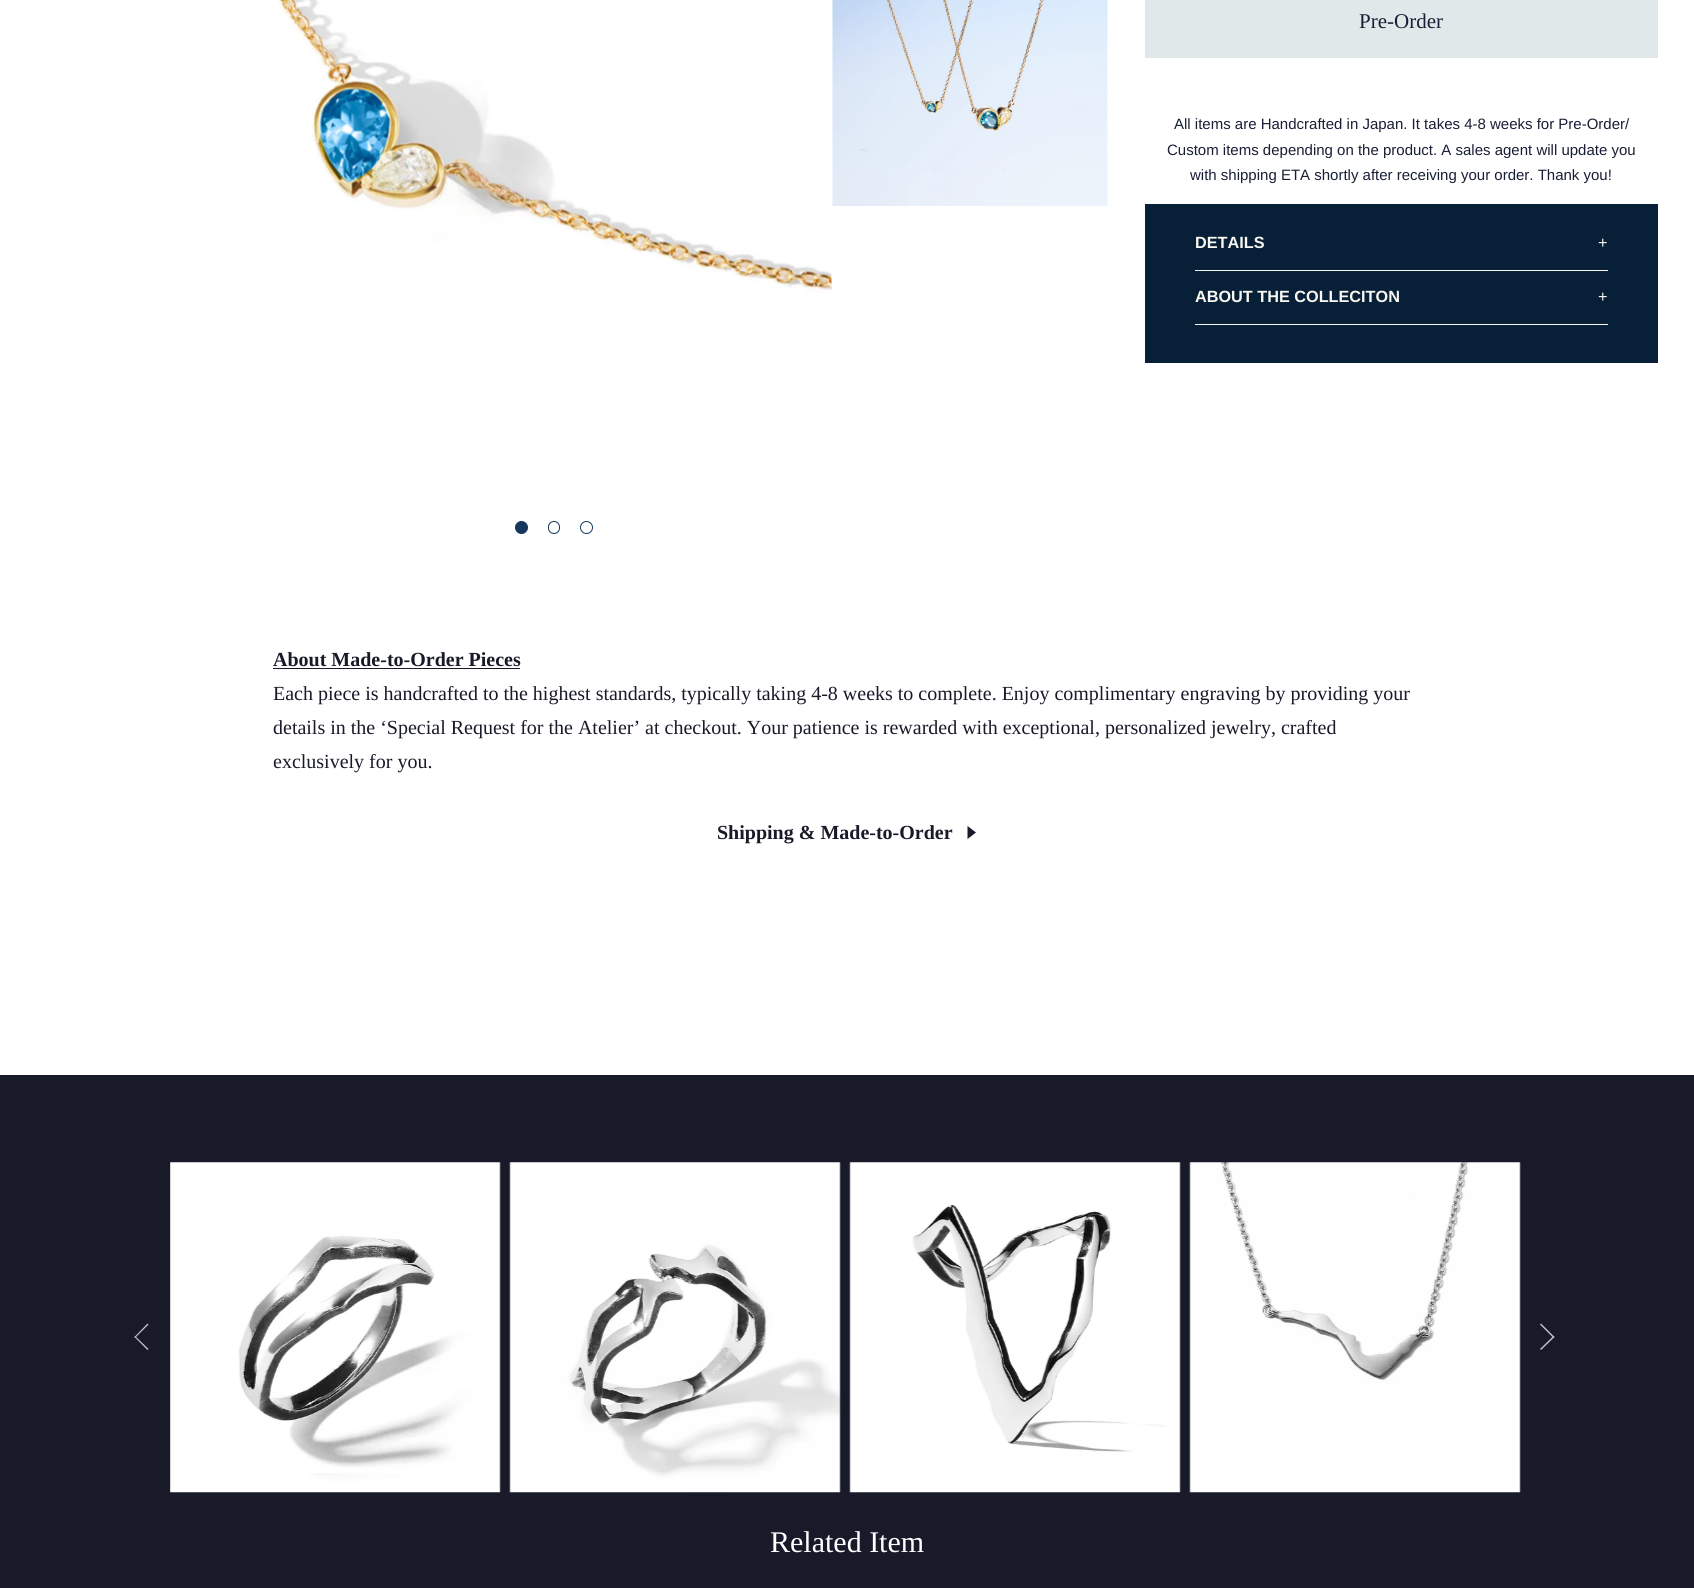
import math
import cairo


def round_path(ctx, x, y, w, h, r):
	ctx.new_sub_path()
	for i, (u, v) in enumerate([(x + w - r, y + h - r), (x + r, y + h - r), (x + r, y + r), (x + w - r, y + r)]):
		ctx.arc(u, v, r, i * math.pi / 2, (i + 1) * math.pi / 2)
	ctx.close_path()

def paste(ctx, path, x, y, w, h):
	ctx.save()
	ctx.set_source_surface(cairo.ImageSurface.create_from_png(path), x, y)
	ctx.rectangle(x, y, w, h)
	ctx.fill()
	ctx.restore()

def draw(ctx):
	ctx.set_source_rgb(1, 1, 1)
	ctx.paint()
	paste(ctx, 'media/1.png', 278, 0, 554, 293)
	ctx.set_source_rgb(0.086, 0.212, 0.369)
	ctx.arc(521.5, 527.5, 6, 0, 2 * math.pi)
	ctx.fill_preserve()
	ctx.set_line_width(1)
	ctx.stroke()
	round_path(ctx, 548.5, 521.5, 11, 12, 5.5)
	ctx.stroke()
	ctx.arc(586.5, 527.5, 6, 0, 2 * math.pi)
	ctx.stroke()
	paste(ctx, 'media/2.png', 832, 0, 276, 206)
	ctx.set_source_rgb(0.882, 0.91, 0.914)
	ctx.rectangle(1145, 0, 513, 58)
	ctx.fill()
	ctx.select_font_face('Liberation Serif')
	ctx.set_font_size(21)
	ctx.set_source_rgb(0.094, 0.118, 0.212)
	ctx.move_to(1359, 28)
	ctx.show_text('Pre-Order')
	ctx.select_font_face('Liberation Sans')
	ctx.set_font_size(15)
	for x, y, s in [
		(1174, 129, 'All items are Handcrafted in Japan. It takes 4-8 weeks for Pre-Order/'),
		(1167, 155, 'Custom items depending on the product. A sales agent will update you'),
		(1190, 180, 'with shipping ETA shortly after receiving your order. Thank you!'),
	]:
		ctx.move_to(x, y)
		ctx.show_text(s)
	ctx.set_source_rgb(0.035, 0.125, 0.216)
	ctx.rectangle(1145, 204, 513, 159)
	ctx.fill()
	ctx.set_source_rgb(0.976, 0.965, 0.945)
	ctx.rectangle(1195, 270, 413, 1)
	ctx.fill()
	ctx.select_font_face('Liberation Sans', cairo.FONT_SLANT_NORMAL, cairo.FONT_WEIGHT_BOLD)
	ctx.set_font_size(16.25)
	ctx.move_to(1195, 248)
	ctx.show_text('DETAILS')
	ctx.select_font_face('Liberation Sans')
	ctx.move_to(1598, 248)
	ctx.show_text('+')
	ctx.rectangle(1195, 324, 413, 1)
	ctx.fill()
	ctx.select_font_face('Liberation Sans', cairo.FONT_SLANT_NORMAL, cairo.FONT_WEIGHT_BOLD)
	ctx.move_to(1195, 302)
	ctx.show_text('ABOUT THE COLLECITON')
	ctx.select_font_face('Liberation Sans')
	ctx.move_to(1598, 302)
	ctx.show_text('+')
	ctx.select_font_face('Liberation Serif', cairo.FONT_SLANT_NORMAL, cairo.FONT_WEIGHT_BOLD)
	ctx.set_font_size(20)
	ctx.set_source_rgb(0.094, 0.102, 0.161)
	ctx.move_to(273, 666)
	ctx.show_text('About Made-to-Order Pieces')
	ctx.rectangle(273, 668, 247, 1)
	ctx.fill()
	ctx.select_font_face('Liberation Serif')
	for x, y, s in [
		(273, 700, 'Each piece is handcrafted to the highest standards, typically taking 4-8 weeks to complete. Enjoy complimentary engraving by providing your'),
		(273, 734, 'details in the ‘Special Request for the Atelier’ at checkout. Your patience is rewarded with exceptional, personalized jewelry, crafted'),
		(273, 768, 'exclusively for you.'),
	]:
		ctx.move_to(x, y)
		ctx.show_text(s)
	ctx.select_font_face('Liberation Serif', cairo.FONT_SLANT_NORMAL, cairo.FONT_WEIGHT_BOLD)
	ctx.move_to(717, 839)
	ctx.show_text('Shipping & Made-to-Order')
	ctx.new_path()
	ctx.move_to(967.5, 839)
	ctx.line_to(967.5, 826)
	ctx.line_to(976, 832.5)
	ctx.close_path()
	ctx.fill()
	ctx.rectangle(0, 1075, 1694, 513)
	ctx.fill()
	ctx.set_source_rgb(0.773, 0.776, 0.792)
	ctx.new_path()
	ctx.move_to(134.5, 1337)
	ctx.line_to(147.5, 1323.5)
	ctx.line_to(148.5, 1324.5)
	ctx.line_to(135, 1338)
	ctx.close_path()
	ctx.fill()
	ctx.new_path()
	ctx.move_to(134.5, 1337)
	ctx.line_to(135, 1336)
	ctx.line_to(148.5, 1349)
	ctx.line_to(147.5, 1350)
	ctx.close_path()
	ctx.fill()
	paste(ctx, 'media/3.png', 170, 1162, 331, 331)
	paste(ctx, 'media/4.png', 509, 1162, 332, 331)
	paste(ctx, 'media/5.png', 849, 1162, 332, 331)
	paste(ctx, 'media/6.png', 1189, 1162, 332, 331)
	ctx.new_path()
	ctx.move_to(1541, 1323.5)
	ctx.line_to(1554.5, 1337)
	ctx.line_to(1553.5, 1338)
	ctx.line_to(1540, 1324.5)
	ctx.close_path()
	ctx.fill()
	ctx.new_path()
	ctx.move_to(1553.5, 1336)
	ctx.line_to(1554.5, 1337)
	ctx.line_to(1541, 1350)
	ctx.line_to(1540, 1349)
	ctx.close_path()
	ctx.fill()
	ctx.select_font_face('Liberation Serif')
	ctx.set_font_size(30)
	ctx.set_source_rgb(1, 1, 1)
	ctx.move_to(770, 1552)
	ctx.show_text('Related Item')


surface = cairo.ImageSurface(cairo.FORMAT_RGB24, 1694, 1588)
ctx = cairo.Context(surface)
options = cairo.FontOptions()
options.set_hint_metrics(cairo.HINT_METRICS_OFF)
options.set_hint_style(cairo.HINT_STYLE_NONE)
ctx.set_font_options(options)
ctx.set_miter_limit(4)
draw(ctx)
surface.write_to_png('image.png')
